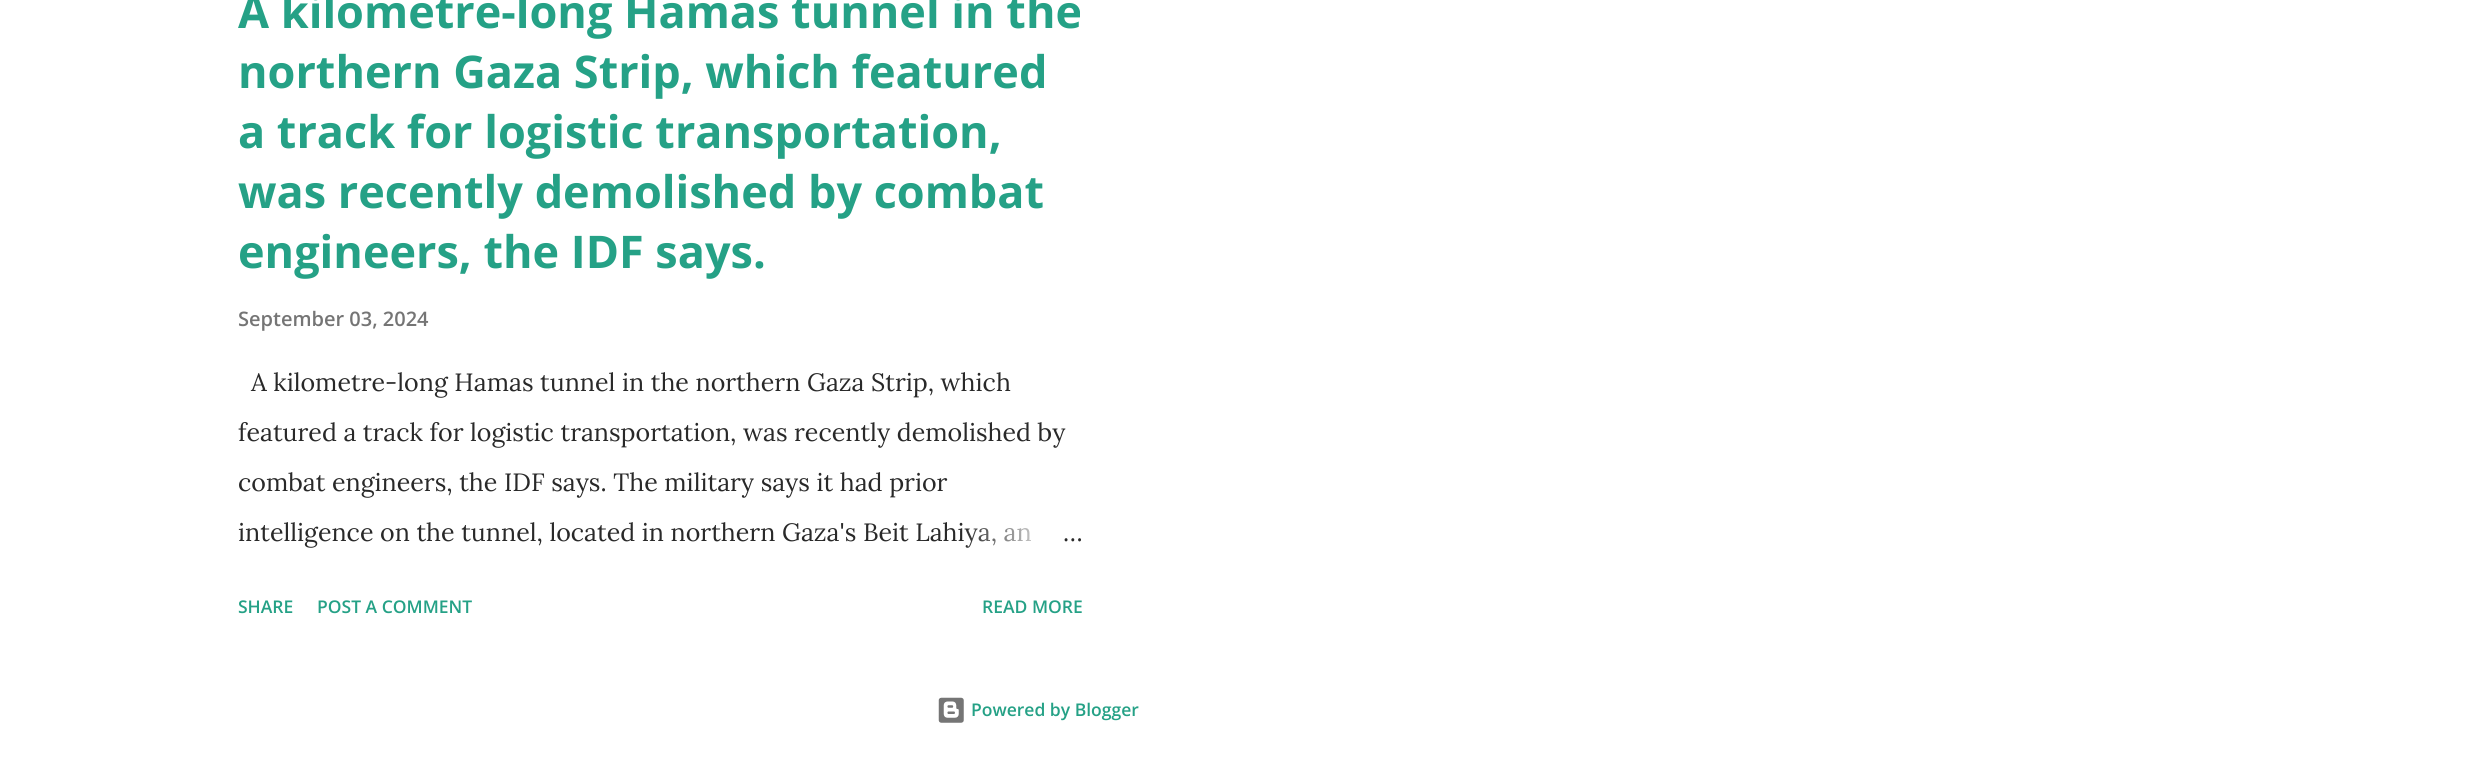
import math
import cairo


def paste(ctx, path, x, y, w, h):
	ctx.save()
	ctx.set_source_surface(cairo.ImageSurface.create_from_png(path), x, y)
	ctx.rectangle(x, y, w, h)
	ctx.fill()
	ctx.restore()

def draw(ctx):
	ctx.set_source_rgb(1, 1, 1)
	ctx.paint()
	ctx.select_font_face('Open Sans', cairo.FONT_SLANT_NORMAL, cairo.FONT_WEIGHT_BOLD)
	ctx.set_font_size(45)
	ctx.set_source_rgb(0.145, 0.631, 0.525)
	for x, y, s in [
		(238, 28, 'A kilometre-long Hamas tunnel in the'),
		(238, 88, 'northern Gaza Strip, which featured'),
		(238, 148, 'a track for logistic transportation,'),
		(238, 208, 'was recently demolished by combat'),
		(238, 268, 'engineers, the IDF says.'),
	]:
		ctx.move_to(x, y)
		ctx.show_text(s)
	ctx.select_font_face('Open Sans SemiBold')
	ctx.set_font_size(20)
	ctx.set_source_rgb(0.459, 0.459, 0.459)
	ctx.move_to(238, 326)
	ctx.show_text('September 03, 2024')
	ctx.select_font_face('Lora')
	ctx.set_font_size(25)
	ctx.set_source_rgb(0.161, 0.161, 0.161)
	for x, y, s in [
		(251, 391, 'A kilometre-long Hamas tunnel in the northern Gaza Strip, which'),
		(238, 441, 'featured a track for logistic transportation, was recently demolished by'),
		(238, 491, 'combat engineers, the IDF says. The military says it had prior'),
		(238, 541, 'intelligence on the tunnel, located in northern Gaza\'s Beit Lahiya, an'),
	]:
		ctx.move_to(x, y)
		ctx.show_text(s)
	gradient = cairo.LinearGradient(1083, 533, 963, 533)
	gradient.add_color_stop_rgba(0, 1, 1, 1, 1)
	gradient.add_color_stop_rgba(0.2, 1, 1, 1, 1)
	gradient.add_color_stop_rgba(1, 1, 1, 1, 0)
	ctx.set_source(gradient)
	ctx.rectangle(965, 528, 66, 20)
	ctx.fill()
	ctx.set_source_rgb(0.161, 0.161, 0.161)
	ctx.move_to(1063, 541)
	ctx.show_text('…')
	ctx.select_font_face('Open Sans SemiBold')
	ctx.set_font_size(17.5)
	ctx.set_source_rgb(0.145, 0.631, 0.525)
	for x, y, s in [
		(238, 613, 'SHARE'),
		(317, 613, 'POST A COMMENT'),
		(982, 613, 'READ MORE'),
	]:
		ctx.move_to(x, y)
		ctx.show_text(s)
	paste(ctx, 'media/1.png', 938, 697, 26, 26)
	ctx.move_to(971, 716)
	ctx.show_text('Powered by Blogger')


surface = cairo.ImageSurface(cairo.FORMAT_RGB24, 2474, 779)
ctx = cairo.Context(surface)
options = cairo.FontOptions()
options.set_hint_metrics(cairo.HINT_METRICS_OFF)
options.set_hint_style(cairo.HINT_STYLE_NONE)
ctx.set_font_options(options)
ctx.set_miter_limit(4)
draw(ctx)
surface.write_to_png('image.png')
